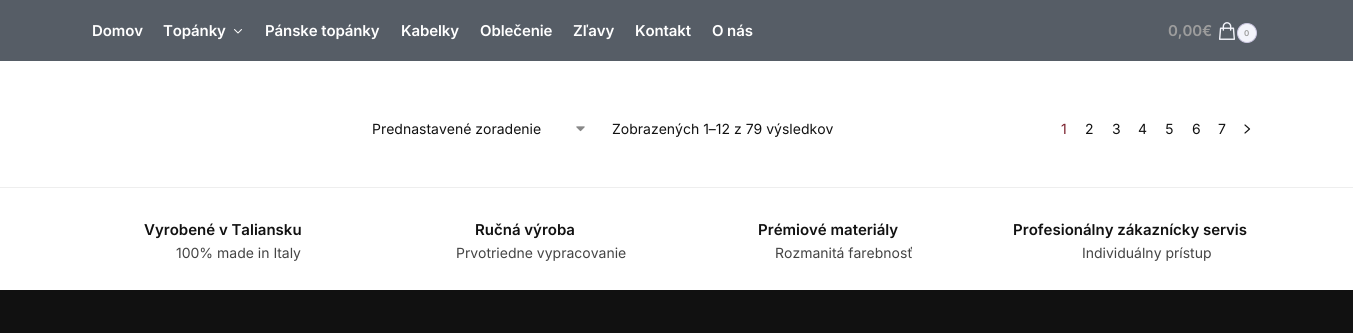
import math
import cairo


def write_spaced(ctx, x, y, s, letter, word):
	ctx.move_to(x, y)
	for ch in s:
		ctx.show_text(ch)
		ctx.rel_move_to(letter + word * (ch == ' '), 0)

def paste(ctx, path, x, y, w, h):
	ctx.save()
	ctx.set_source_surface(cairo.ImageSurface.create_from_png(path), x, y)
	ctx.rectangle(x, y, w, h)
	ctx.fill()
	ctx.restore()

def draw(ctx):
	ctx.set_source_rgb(1, 1, 1)
	ctx.paint()
	ctx.set_source_rgb(0.337, 0.365, 0.4)
	ctx.rectangle(0, 0, 1353, 61)
	ctx.fill()
	ctx.select_font_face('Inter SemiBold')
	ctx.set_font_size(15)
	ctx.set_source_rgb(1, 1, 1)
	write_spaced(ctx, 92, 36, 'Domov', -0.1, 0)
	write_spaced(ctx, 163, 36, 'Topánky', -0.1, 0)
	ctx.new_path()
	ctx.move_to(241.5, 29.5)
	ctx.line_to(238, 33)
	ctx.line_to(234.5, 29.5)
	ctx.set_line_width(1)
	ctx.set_line_cap(cairo.LINE_CAP_ROUND)
	ctx.set_line_join(cairo.LINE_JOIN_ROUND)
	ctx.stroke()
	for x, y, s in [
		(265, 36, 'Pánske topánky'),
		(401, 36, 'Kabelky'),
		(480, 36, 'Oblečenie'),
		(573, 36, 'Zľavy'),
		(635, 36, 'Kontakt'),
		(712, 36, 'O nás'),
	]:
		write_spaced(ctx, x, y, s, -0.1, 0)
	ctx.set_source_rgb(0.616, 0.616, 0.616)
	write_spaced(ctx, 1168, 36, '0,00€', -0.1, 0)
	paste(ctx, 'media/1.png', 1219, 22, 16, 18)
	ctx.set_source_rgb(0.953, 0.957, 0.984)
	ctx.arc(1247, 33, 9.5, 0, 2 * math.pi)
	ctx.fill_preserve()
	ctx.set_source_rgb(0.796, 0.78, 0.878)
	ctx.set_line_cap(cairo.LINE_CAP_BUTT)
	ctx.set_line_join(cairo.LINE_JOIN_MITER)
	ctx.stroke()
	ctx.set_font_size(8)
	ctx.set_source_rgb(0.616, 0.616, 0.616)
	write_spaced(ctx, 1244, 36, '0', -0.1, 0)
	paste(ctx, 'media/2.png', 576, 126, 9, 6)
	ctx.select_font_face('Inter')
	ctx.set_font_size(14)
	ctx.set_source_rgb(0.067, 0.067, 0.067)
	ctx.move_to(372, 134)
	ctx.show_text('Prednastavené zoradenie')
	ctx.move_to(612, 134)
	ctx.show_text('Zobrazených 1–12 z 79 výsledkov')
	ctx.set_source_rgb(0.482, 0.129, 0.176)
	ctx.move_to(1061, 134)
	ctx.show_text('1')
	ctx.set_source_rgb(0.067, 0.067, 0.067)
	for x, y, s in [
		(1085, 134, '2'),
		(1112, 134, '3'),
		(1138, 134, '4'),
		(1165, 134, '5'),
		(1192, 134, '6'),
		(1218, 134, '7'),
	]:
		ctx.move_to(x, y)
		ctx.show_text(s)
	ctx.new_path()
	ctx.move_to(1245, 125)
	ctx.line_to(1249.5, 129)
	ctx.line_to(1245, 133)
	ctx.set_line_width(1.2)
	ctx.set_line_cap(cairo.LINE_CAP_ROUND)
	ctx.set_line_join(cairo.LINE_JOIN_ROUND)
	ctx.stroke()
	ctx.set_source_rgb(0.933, 0.933, 0.933)
	ctx.rectangle(0, 187, 1353, 1)
	ctx.fill()
	ctx.select_font_face('Inter SemiBold')
	ctx.set_font_size(15)
	ctx.set_source_rgb(0.067, 0.067, 0.067)
	ctx.move_to(144, 235)
	ctx.show_text('Vyrobené v Taliansku')
	ctx.select_font_face('Inter')
	ctx.set_font_size(14)
	ctx.set_source_rgb(0.267, 0.267, 0.267)
	ctx.move_to(176, 258)
	ctx.show_text('100% made in Italy')
	ctx.select_font_face('Inter SemiBold')
	ctx.set_font_size(15)
	ctx.set_source_rgb(0.067, 0.067, 0.067)
	ctx.move_to(475, 235)
	ctx.show_text('Ručná výroba')
	ctx.select_font_face('Inter')
	ctx.set_font_size(14)
	ctx.set_source_rgb(0.267, 0.267, 0.267)
	ctx.move_to(456, 258)
	ctx.show_text('Prvotriedne vypracovanie')
	ctx.select_font_face('Inter SemiBold')
	ctx.set_font_size(15)
	ctx.set_source_rgb(0.067, 0.067, 0.067)
	ctx.move_to(758, 235)
	ctx.show_text('Prémiové materiály')
	ctx.select_font_face('Inter')
	ctx.set_font_size(14)
	ctx.set_source_rgb(0.267, 0.267, 0.267)
	ctx.move_to(775, 258)
	ctx.show_text('Rozmanitá farebnosť')
	ctx.select_font_face('Inter SemiBold')
	ctx.set_font_size(15)
	ctx.set_source_rgb(0.067, 0.067, 0.067)
	ctx.move_to(1013, 235)
	ctx.show_text('Profesionálny zákaznícky servis')
	ctx.select_font_face('Inter')
	ctx.set_font_size(14)
	ctx.set_source_rgb(0.267, 0.267, 0.267)
	ctx.move_to(1082, 258)
	ctx.show_text('Individuálny prístup')
	ctx.set_source_rgb(0.067, 0.067, 0.067)
	ctx.rectangle(0, 290, 1353, 43)
	ctx.fill()


surface = cairo.ImageSurface(cairo.FORMAT_RGB24, 1368, 333)
ctx = cairo.Context(surface)
options = cairo.FontOptions()
options.set_hint_metrics(cairo.HINT_METRICS_OFF)
options.set_hint_style(cairo.HINT_STYLE_NONE)
ctx.set_font_options(options)
ctx.set_miter_limit(4)
draw(ctx)
surface.write_to_png('image.png')
